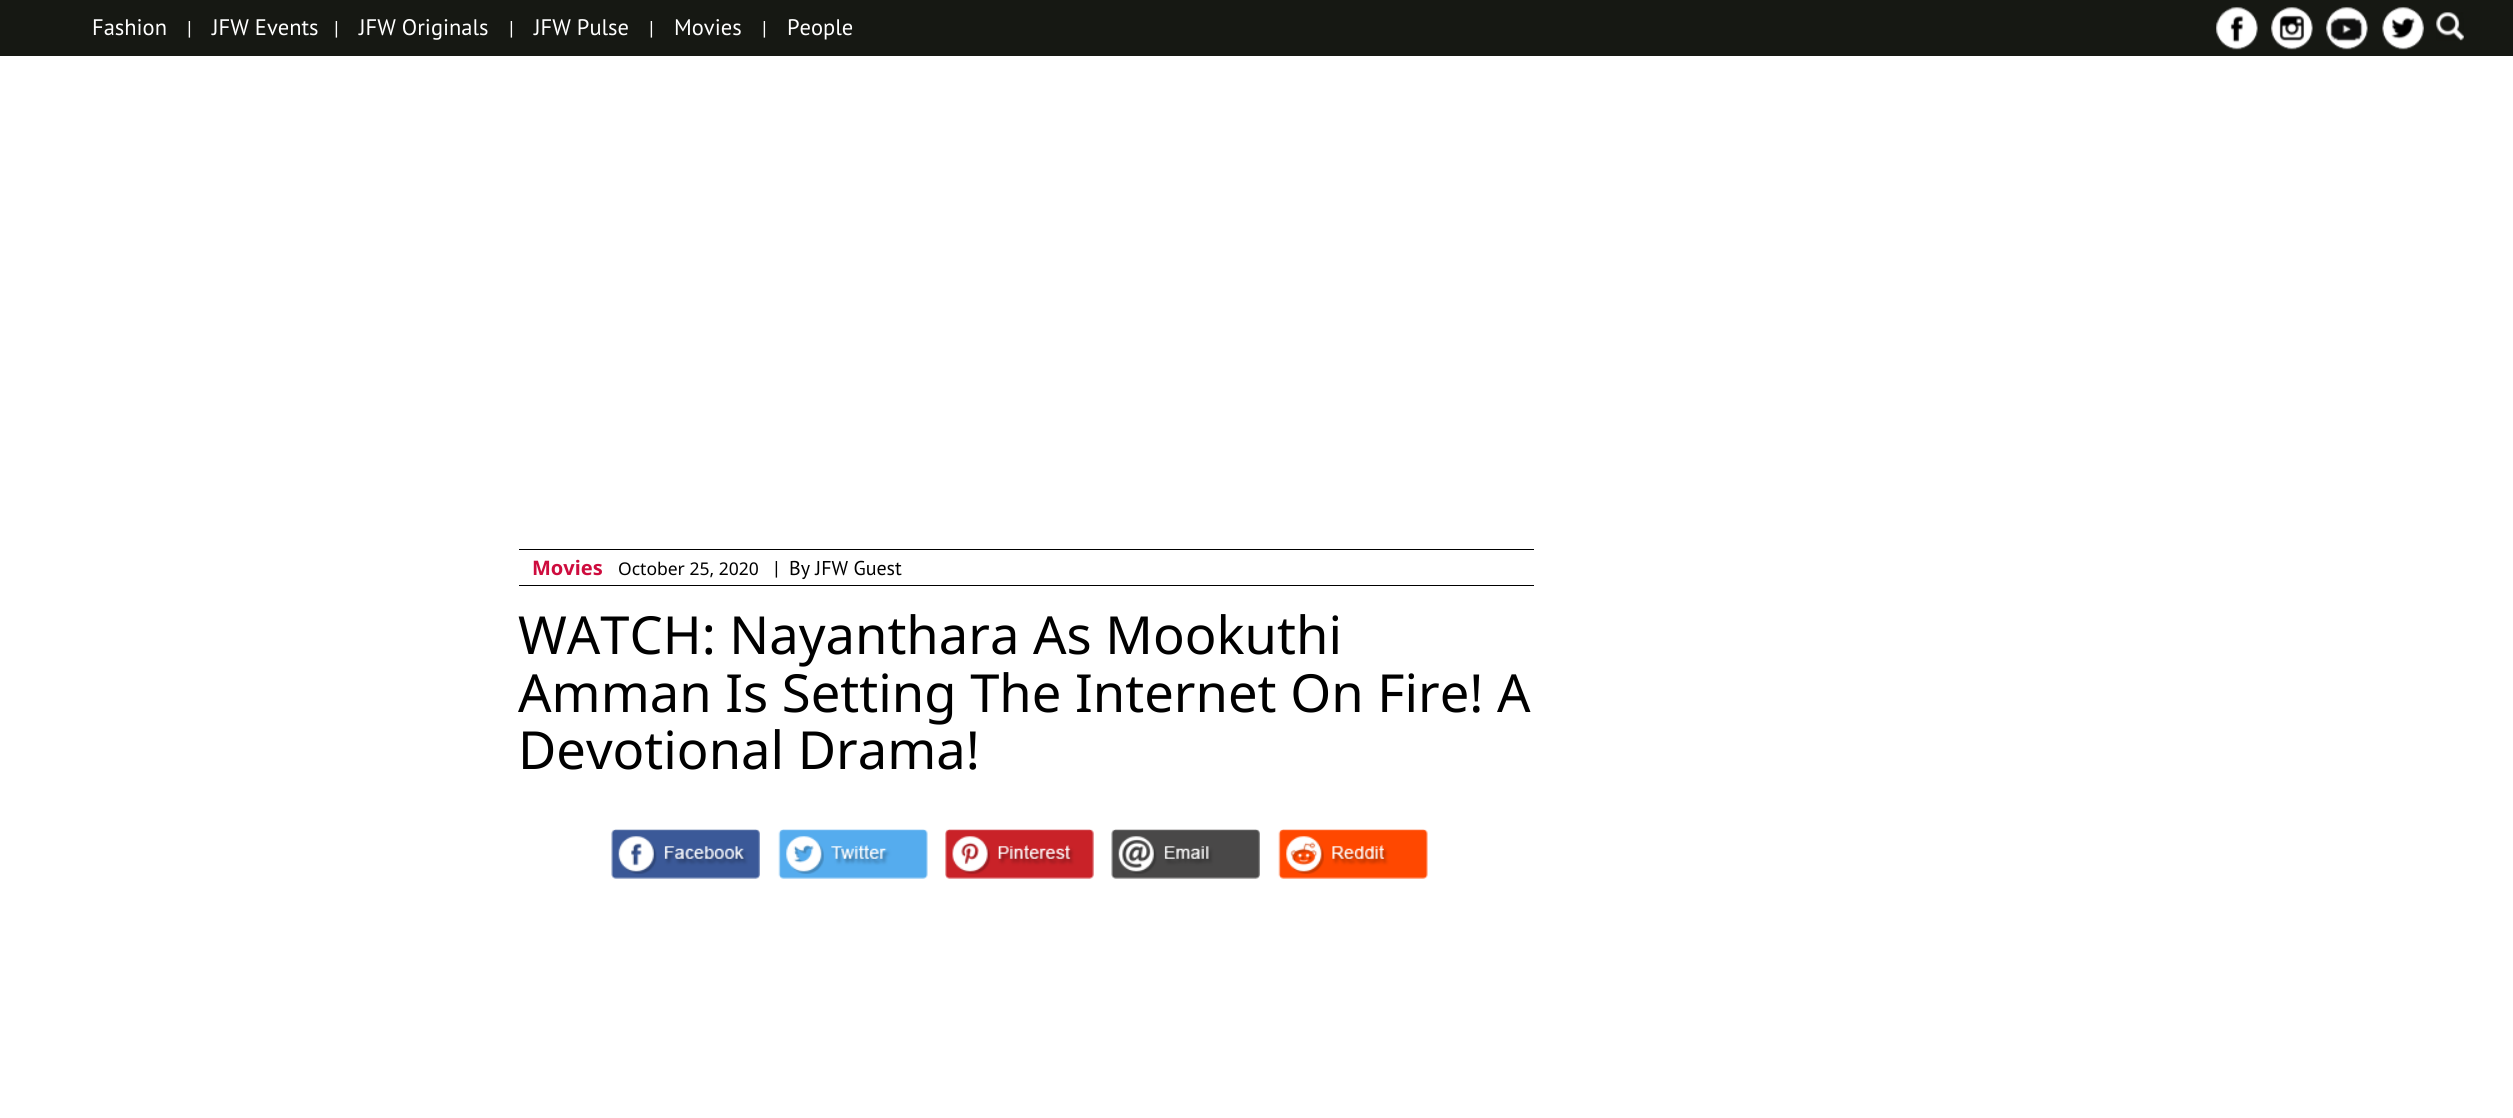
import math
import cairo


def paste(ctx, path, x, y, w, h):
	ctx.save()
	ctx.set_source_surface(cairo.ImageSurface.create_from_png(path), x, y)
	ctx.rectangle(x, y, w, h)
	ctx.fill()
	ctx.restore()

def draw(ctx):
	ctx.set_source_rgb(1, 1, 1)
	ctx.paint()
	ctx.set_source_rgb(0.086, 0.094, 0.075)
	ctx.rectangle(0, 0, 2513, 56)
	ctx.fill()
	ctx.select_font_face('PT Sans')
	ctx.set_font_size(22.5)
	ctx.set_source_rgb(1, 1, 1)
	ctx.move_to(92, 35)
	ctx.show_text('Fashion')
	ctx.set_font_size(20)
	ctx.move_to(187, 35)
	ctx.show_text('|')
	ctx.set_font_size(22.5)
	ctx.move_to(212, 35)
	ctx.show_text('JFW Events')
	ctx.set_font_size(20)
	ctx.move_to(334, 35)
	ctx.show_text('|')
	ctx.set_font_size(22.5)
	ctx.move_to(359, 35)
	ctx.show_text('JFW Originals')
	ctx.set_font_size(20)
	ctx.move_to(509, 35)
	ctx.show_text('|')
	ctx.set_font_size(22.5)
	ctx.move_to(534, 35)
	ctx.show_text('JFW Pulse')
	ctx.set_font_size(20)
	ctx.move_to(649, 35)
	ctx.show_text('|')
	ctx.set_font_size(22.5)
	ctx.move_to(674, 35)
	ctx.show_text('Movies')
	ctx.set_font_size(20)
	ctx.move_to(762, 35)
	ctx.show_text('|')
	ctx.set_font_size(22.5)
	ctx.move_to(787, 35)
	ctx.show_text('People')
	paste(ctx, 'media/1.png', 2216, 7, 42, 43)
	paste(ctx, 'media/2.png', 2271, 7, 42, 43)
	paste(ctx, 'media/3.png', 2326, 7, 42, 43)
	paste(ctx, 'media/4.png', 2382, 7, 42, 43)
	paste(ctx, 'media/5.png', 2436, 12, 28, 29)
	ctx.set_source_rgb(0, 0, 0)
	ctx.rectangle(519, 549, 1015, 1)
	ctx.fill()
	ctx.rectangle(519, 585, 1015, 1)
	ctx.fill()
	ctx.select_font_face('Noto Sans', cairo.FONT_SLANT_NORMAL, cairo.FONT_WEIGHT_BOLD)
	ctx.set_font_size(20)
	ctx.set_source_rgb(0.808, 0.047, 0.243)
	ctx.move_to(532, 575)
	ctx.show_text('Movies')
	ctx.select_font_face('Noto Sans')
	ctx.set_font_size(17.5)
	ctx.set_source_rgb(0, 0, 0)
	ctx.move_to(618, 575)
	ctx.show_text('October 25, 2020')
	ctx.select_font_face('PT Sans')
	ctx.set_font_size(20)
	ctx.move_to(774, 575)
	ctx.show_text('|')
	ctx.move_to(789, 575)
	ctx.show_text('By JFW Guest')
	ctx.select_font_face('Noto Sans')
	ctx.set_font_size(52.5)
	for x, y, s in [
		(518, 654, 'WATCH: Nayanthara As Mookuthi'),
		(518, 712, 'Amman Is Setting The Internet On Fire! A'),
		(518, 769, 'Devotional Drama!'),
	]:
		ctx.move_to(x, y)
		ctx.show_text(s)
	paste(ctx, 'media/6.png', 611, 829, 149, 50)
	paste(ctx, 'media/7.png', 778, 829, 150, 50)
	paste(ctx, 'media/8.png', 945, 829, 149, 50)
	paste(ctx, 'media/9.png', 1111, 829, 149, 50)
	paste(ctx, 'media/10.png', 1278, 829, 150, 50)


surface = cairo.ImageSurface(cairo.FORMAT_RGB24, 2513, 1118)
ctx = cairo.Context(surface)
options = cairo.FontOptions()
options.set_hint_metrics(cairo.HINT_METRICS_OFF)
options.set_hint_style(cairo.HINT_STYLE_NONE)
ctx.set_font_options(options)
ctx.set_miter_limit(4)
draw(ctx)
surface.write_to_png('image.png')
